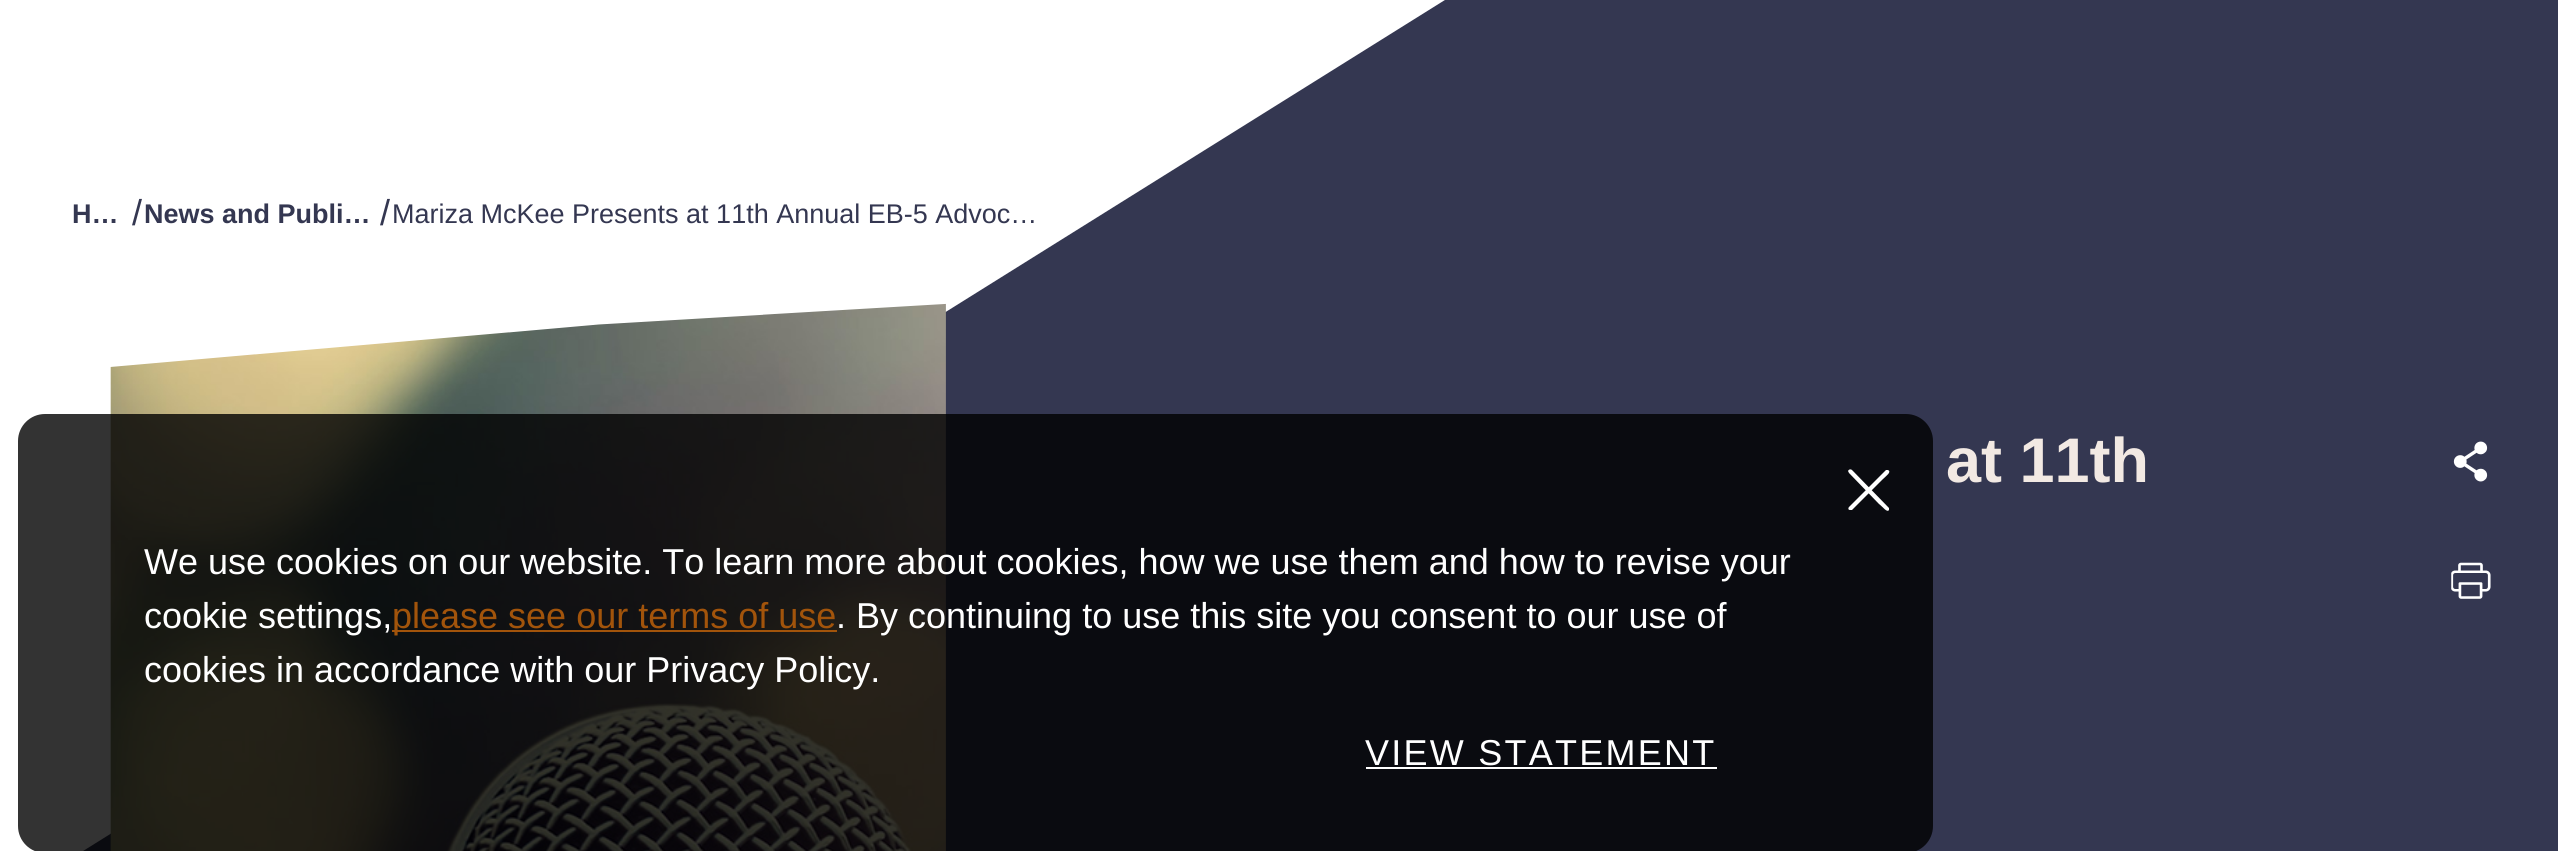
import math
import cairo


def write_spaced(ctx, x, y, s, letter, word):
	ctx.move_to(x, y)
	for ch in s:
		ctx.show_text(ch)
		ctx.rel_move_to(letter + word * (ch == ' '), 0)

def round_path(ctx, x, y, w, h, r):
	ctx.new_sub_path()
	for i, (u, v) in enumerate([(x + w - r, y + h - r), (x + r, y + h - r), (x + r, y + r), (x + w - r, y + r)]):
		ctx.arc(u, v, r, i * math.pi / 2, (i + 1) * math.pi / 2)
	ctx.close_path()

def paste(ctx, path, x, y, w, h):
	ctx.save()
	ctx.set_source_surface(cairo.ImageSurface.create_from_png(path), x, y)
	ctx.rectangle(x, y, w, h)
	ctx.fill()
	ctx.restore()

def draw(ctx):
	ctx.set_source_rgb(1, 1, 1)
	ctx.paint()
	ctx.set_source_rgb(0.204, 0.216, 0.318)
	ctx.new_path()
	ctx.move_to(1981, -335)
	ctx.line_to(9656, -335)
	ctx.line_to(-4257, 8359)
	ctx.line_to(-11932, 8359)
	ctx.close_path()
	ctx.fill()
	ctx.select_font_face('Liberation Sans', cairo.FONT_SLANT_NORMAL, cairo.FONT_WEIGHT_BOLD)
	ctx.set_font_size(27)
	ctx.move_to(72, 223)
	ctx.show_text('H…')
	ctx.select_font_face('Liberation Sans')
	ctx.set_font_size(36)
	write_spaced(ctx, 132, 225, '/', 2.25, 0)
	ctx.select_font_face('Liberation Sans', cairo.FONT_SLANT_NORMAL, cairo.FONT_WEIGHT_BOLD)
	ctx.set_font_size(27)
	ctx.move_to(144, 223)
	ctx.show_text('News and Publi…')
	ctx.select_font_face('Liberation Sans')
	ctx.set_font_size(36)
	write_spaced(ctx, 380, 225, '/', 2.25, 0)
	ctx.set_font_size(27)
	ctx.move_to(392, 223)
	ctx.show_text('Mariza McKee Presents at 11th Annual EB-5 Advoc…')
	paste(ctx, 'media/1.png', 110, 303, 836, 548)
	ctx.select_font_face('Liberation Sans', cairo.FONT_SLANT_NORMAL, cairo.FONT_WEIGHT_BOLD)
	ctx.set_font_size(63)
	ctx.set_source_rgb(0.949, 0.914, 0.89)
	ctx.move_to(1946, 482)
	ctx.show_text('at 11th')
	paste(ctx, 'media/2.png', 2453, 441, 35, 41)
	paste(ctx, 'media/3.png', 2451, 562, 40, 37)
	ctx.set_source_rgba(0, 0, 0, 0.8)
	round_path(ctx, 18, 414, 1915, 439, 27)
	ctx.fill()
	ctx.set_source_rgb(1, 1, 1)
	ctx.new_path()
	ctx.move_to(1852, 470)
	ctx.line_to(1889, 508)
	ctx.line_to(1889, 510)
	ctx.curve_to(1887, 513, 1883, 507, 1879, 504)
	ctx.line_to(1849, 473)
	ctx.line_to(1848, 471)
	ctx.curve_to(1849, 469, 1851, 469, 1852, 470)
	ctx.close_path()
	ctx.fill()
	ctx.new_path()
	ctx.move_to(1849, 507)
	ctx.line_to(1886, 470)
	ctx.line_to(1888, 470)
	ctx.curve_to(1892, 472, 1886, 476, 1883, 479)
	ctx.line_to(1852, 510)
	ctx.line_to(1850, 510)
	ctx.curve_to(1848, 510, 1848, 508, 1849, 507)
	ctx.close_path()
	ctx.fill()
	ctx.select_font_face('Liberation Sans')
	ctx.set_font_size(36)
	ctx.move_to(144, 574)
	ctx.show_text('We use cookies on our website. To learn more about cookies, how we use them and how to revise your')
	ctx.move_to(144, 628)
	ctx.show_text('cookie settings,')
	ctx.set_source_rgb(0.635, 0.329, 0.043)
	ctx.rectangle(392, 630, 445, 2)
	ctx.fill()
	ctx.move_to(392, 628)
	ctx.show_text('please see our terms of use')
	ctx.set_source_rgb(1, 1, 1)
	ctx.move_to(836, 628)
	ctx.show_text('. By continuing to use this site you consent to our use of')
	ctx.move_to(144, 682)
	ctx.show_text('cookies in accordance with our Privacy Policy.')
	write_spaced(ctx, 1365, 765, 'VIEW STATEMENT', 2.25, 0)
	ctx.rectangle(1366, 767, 351, 2)
	ctx.fill()


surface = cairo.ImageSurface(cairo.FORMAT_RGB24, 2558, 851)
ctx = cairo.Context(surface)
options = cairo.FontOptions()
options.set_hint_metrics(cairo.HINT_METRICS_OFF)
options.set_hint_style(cairo.HINT_STYLE_NONE)
ctx.set_font_options(options)
ctx.set_miter_limit(4)
draw(ctx)
surface.write_to_png('image.png')
